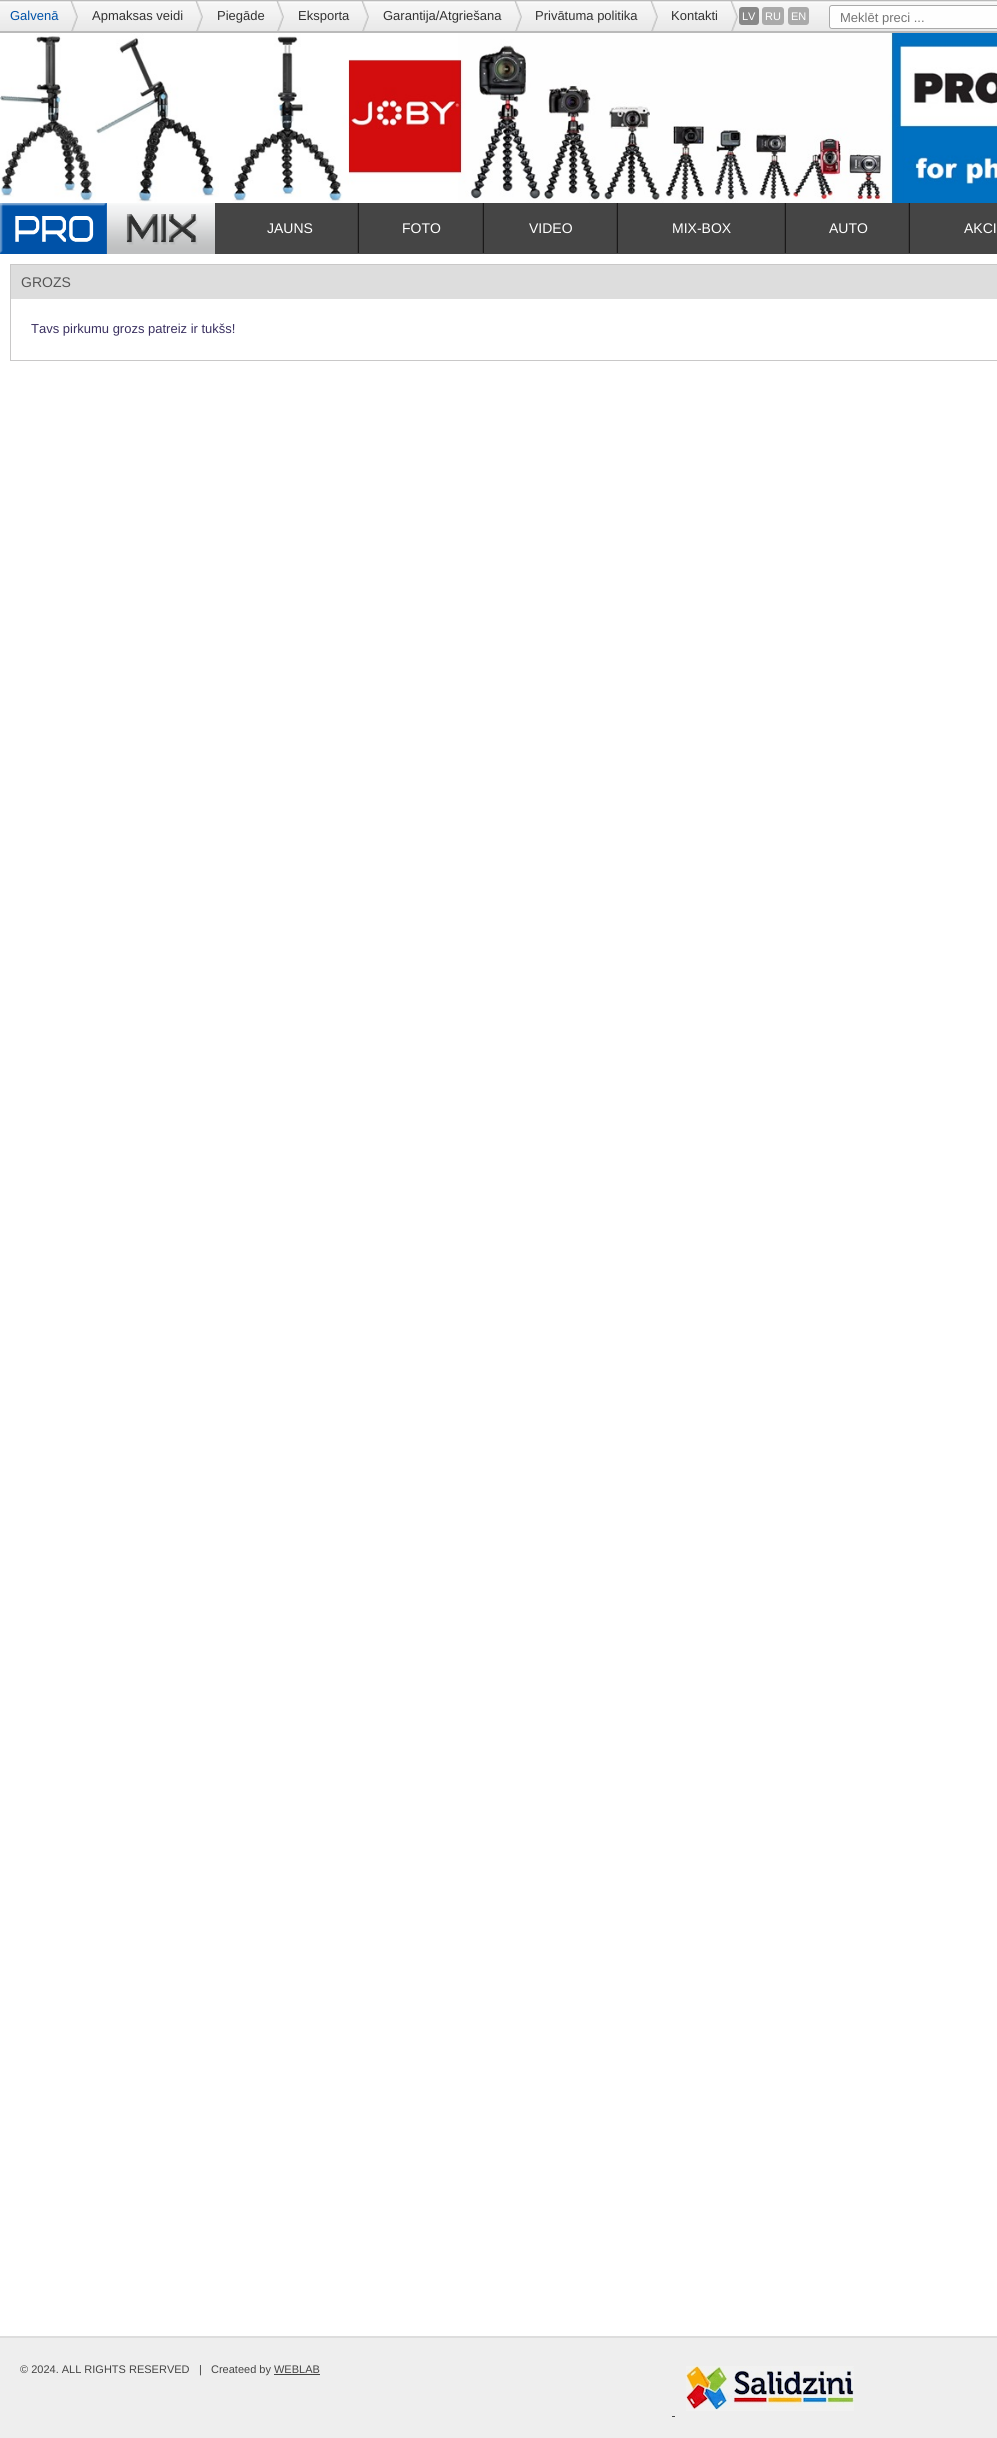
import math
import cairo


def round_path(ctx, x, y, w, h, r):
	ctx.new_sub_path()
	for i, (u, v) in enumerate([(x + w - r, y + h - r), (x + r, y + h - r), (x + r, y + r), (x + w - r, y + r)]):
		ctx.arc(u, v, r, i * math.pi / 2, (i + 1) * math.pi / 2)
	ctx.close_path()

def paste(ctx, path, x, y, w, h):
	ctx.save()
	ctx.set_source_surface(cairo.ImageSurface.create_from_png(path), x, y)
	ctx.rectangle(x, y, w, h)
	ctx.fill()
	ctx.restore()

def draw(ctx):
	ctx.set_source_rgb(1, 1, 1)
	ctx.paint()
	paste(ctx, 'media/1.png', 0, 0, 997, 31)
	ctx.set_source_rgb(0.729, 0.729, 0.729)
	ctx.rectangle(0, 31, 997, 2)
	ctx.fill()
	paste(ctx, 'media/2.png', 70, 1, 8, 30)
	ctx.select_font_face('Liberation Sans')
	ctx.set_font_size(13)
	ctx.set_source_rgb(0, 0.322, 0.659)
	ctx.move_to(10, 20)
	ctx.show_text('Galvenā')
	paste(ctx, 'media/2.png', 195, 1, 8, 30)
	ctx.set_source_rgb(0.2, 0.2, 0.2)
	ctx.move_to(92, 20)
	ctx.show_text('Apmaksas veidi')
	paste(ctx, 'media/2.png', 276, 1, 8, 30)
	ctx.move_to(217, 20)
	ctx.show_text('Piegāde')
	paste(ctx, 'media/2.png', 361, 1, 8, 30)
	ctx.move_to(298, 20)
	ctx.show_text('Eksporta')
	paste(ctx, 'media/2.png', 514, 1, 8, 30)
	ctx.move_to(383, 20)
	ctx.show_text('Garantija/Atgriešana')
	paste(ctx, 'media/2.png', 650, 1, 8, 30)
	ctx.move_to(535, 20)
	ctx.show_text('Privātuma politika')
	paste(ctx, 'media/2.png', 730, 1, 8, 30)
	ctx.move_to(671, 20)
	ctx.show_text('Kontakti')
	ctx.set_source_rgb(0.533, 0.533, 0.533)
	round_path(ctx, 739, 7, 20, 18, 3)
	ctx.fill()
	ctx.set_font_size(11)
	ctx.set_source_rgb(1, 1, 1)
	ctx.move_to(742, 20)
	ctx.show_text('LV')
	ctx.set_source_rgb(0.667, 0.667, 0.667)
	round_path(ctx, 762, 7, 22, 18, 3)
	ctx.fill()
	ctx.set_source_rgb(1, 1, 1)
	ctx.move_to(765, 20)
	ctx.show_text('RU')
	ctx.set_source_rgb(0.667, 0.667, 0.667)
	round_path(ctx, 788, 7, 21, 18, 3)
	ctx.fill()
	ctx.set_source_rgb(1, 1, 1)
	ctx.move_to(791, 20)
	ctx.show_text('EN')
	ctx.set_source_rgb(0.996, 0.996, 0.996)
	round_path(ctx, 829.5, 5.5, 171, 23, 2.5)
	ctx.fill_preserve()
	ctx.set_source_rgb(0.667, 0.667, 0.667)
	ctx.set_line_width(1)
	ctx.stroke()
	ctx.set_source_rgb(0.996, 0.996, 0.996)
	round_path(ctx, 830, 6, 145, 22, 3)
	ctx.fill()
	ctx.set_font_size(13)
	ctx.set_source_rgb(0.459, 0.459, 0.459)
	ctx.move_to(840, 22)
	ctx.show_text('Meklēt preci ...')
	paste(ctx, 'media/3.png', 0, 33, 997, 170)
	ctx.set_source_rgb(0.271, 0.271, 0.271)
	ctx.rectangle(215, 203, 782, 51)
	ctx.fill()
	paste(ctx, 'media/4.png', 0, 203, 215, 51)
	paste(ctx, 'media/5.png', 357, 203, 2, 50)
	ctx.set_font_size(14)
	ctx.set_source_rgb(1, 1, 1)
	ctx.move_to(267, 233)
	ctx.show_text('JAUNS')
	paste(ctx, 'media/5.png', 482, 203, 2, 50)
	ctx.move_to(402, 233)
	ctx.show_text('FOTO')
	paste(ctx, 'media/5.png', 616, 203, 2, 50)
	ctx.move_to(529, 233)
	ctx.show_text('VIDEO')
	paste(ctx, 'media/5.png', 784, 203, 2, 50)
	ctx.move_to(672, 233)
	ctx.show_text('MIX-BOX')
	paste(ctx, 'media/5.png', 908, 203, 2, 50)
	ctx.move_to(829, 233)
	ctx.show_text('AUTO')
	ctx.move_to(964, 233)
	ctx.show_text('AKCI')
	ctx.rectangle(10.5, 264.5, 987, 96)
	ctx.set_source_rgb(0.788, 0.784, 0.784)
	ctx.stroke()
	ctx.set_source_rgb(0.867, 0.867, 0.867)
	ctx.rectangle(11, 265, 986, 34)
	ctx.fill()
	ctx.set_source_rgb(0.333, 0.333, 0.333)
	ctx.move_to(21, 287)
	ctx.show_text('GROZS')
	ctx.set_font_size(13)
	ctx.set_source_rgb(0.231, 0.192, 0.38)
	ctx.move_to(31, 333)
	ctx.show_text('Tavs pirkumu grozs patreiz ir tukšs!')
	ctx.set_source_rgb(0.933, 0.933, 0.933)
	ctx.rectangle(0, 2338, 997, 100)
	ctx.fill()
	ctx.set_source_rgb(0.867, 0.867, 0.867)
	ctx.rectangle(0, 2336, 997, 2)
	ctx.fill()
	ctx.set_font_size(11)
	ctx.set_source_rgb(0.267, 0.267, 0.267)
	for x, y, s in [
		(20, 2373, '© 2024. ALL RIGHTS RESERVED'),
		(199, 2373, '|'),
		(211, 2373, 'Createed by WEBLAB'),
	]:
		ctx.move_to(x, y)
		ctx.show_text(s)
	ctx.rectangle(274, 2374, 46, 1)
	ctx.fill()
	paste(ctx, 'media/6.png', 686, 2366, 168, 45)
	ctx.rectangle(672, 2416, 3, 1)
	ctx.fill()


surface = cairo.ImageSurface(cairo.FORMAT_RGB24, 997, 2438)
ctx = cairo.Context(surface)
options = cairo.FontOptions()
options.set_hint_metrics(cairo.HINT_METRICS_OFF)
options.set_hint_style(cairo.HINT_STYLE_NONE)
ctx.set_font_options(options)
ctx.set_miter_limit(4)
draw(ctx)
surface.write_to_png('image.png')
